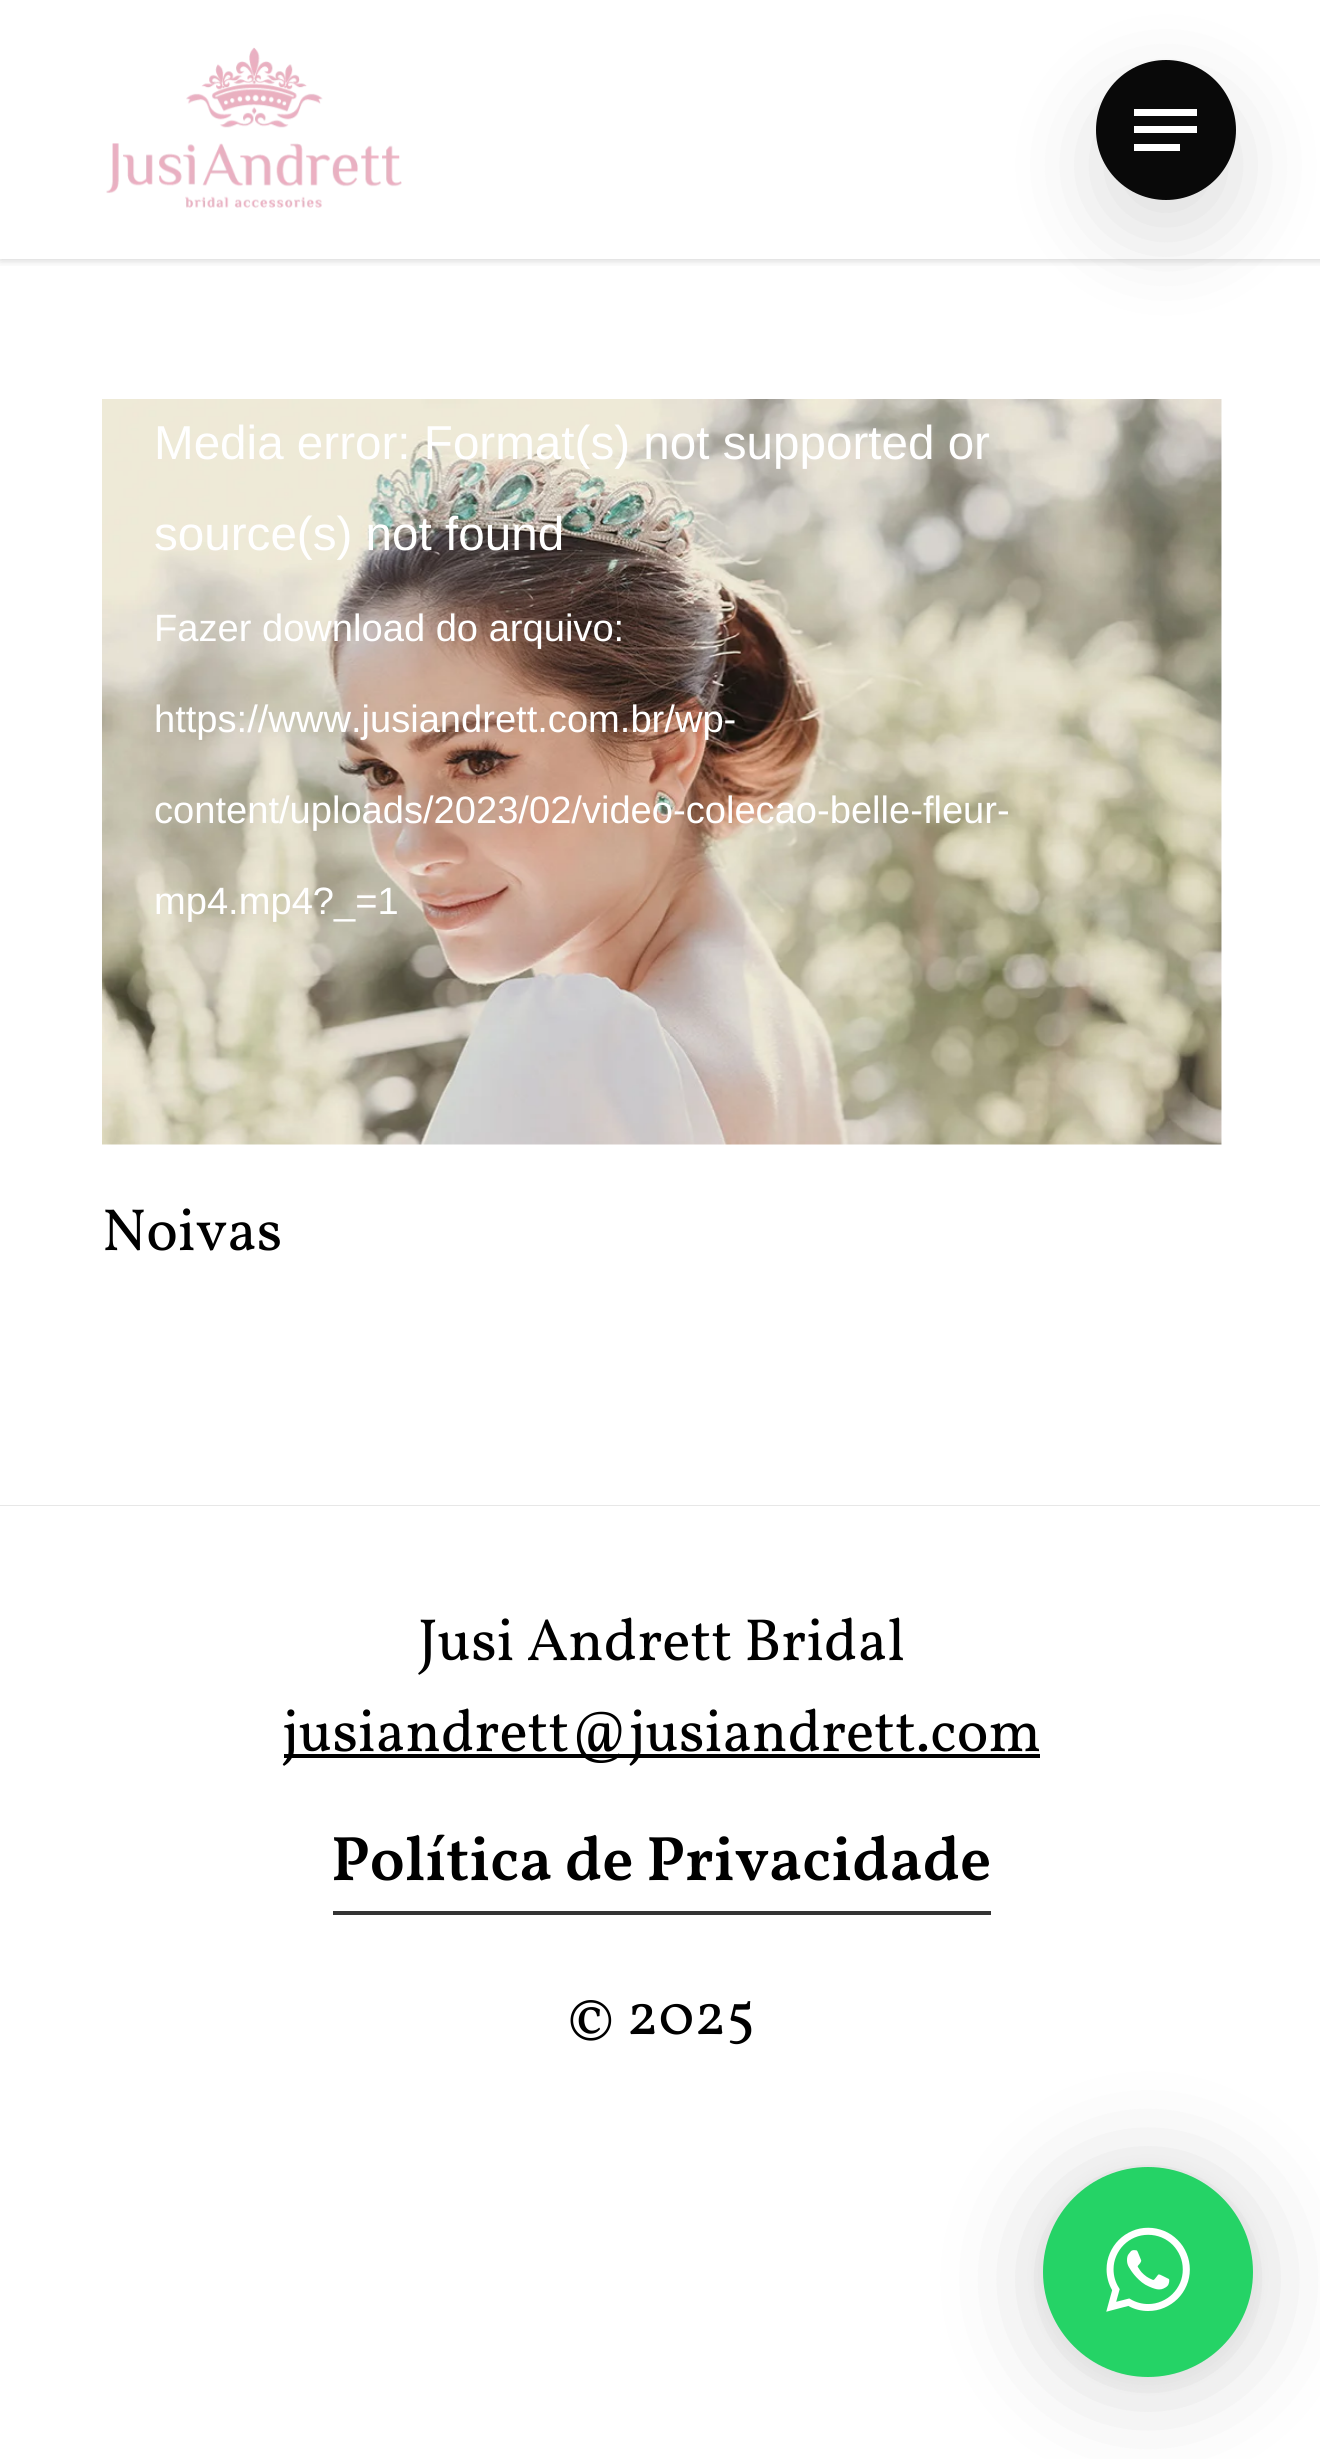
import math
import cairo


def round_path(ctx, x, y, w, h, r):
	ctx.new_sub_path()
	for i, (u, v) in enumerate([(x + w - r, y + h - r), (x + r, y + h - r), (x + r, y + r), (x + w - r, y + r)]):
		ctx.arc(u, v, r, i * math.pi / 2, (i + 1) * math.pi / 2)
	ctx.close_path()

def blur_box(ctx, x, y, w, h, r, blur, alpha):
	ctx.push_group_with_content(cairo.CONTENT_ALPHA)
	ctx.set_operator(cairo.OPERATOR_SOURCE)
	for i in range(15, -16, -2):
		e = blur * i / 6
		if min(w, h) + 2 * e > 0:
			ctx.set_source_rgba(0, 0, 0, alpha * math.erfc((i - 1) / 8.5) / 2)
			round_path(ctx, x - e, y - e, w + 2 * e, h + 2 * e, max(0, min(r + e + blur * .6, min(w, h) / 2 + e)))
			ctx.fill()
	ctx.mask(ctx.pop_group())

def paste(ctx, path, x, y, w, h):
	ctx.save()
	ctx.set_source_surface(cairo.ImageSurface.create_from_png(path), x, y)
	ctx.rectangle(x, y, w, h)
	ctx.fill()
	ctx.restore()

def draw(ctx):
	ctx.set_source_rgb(1, 1, 1)
	ctx.paint()
	ctx.save()
	ctx.rectangle(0, 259, 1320, 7)
	ctx.clip()
	ctx.set_source_rgb(0, 0, 0)
	blur_box(ctx, 0, 0, 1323, 259, 0, 5, 0.22)
	ctx.restore()
	paste(ctx, 'media/1.png', 106, 47, 296, 161)
	ctx.set_source_rgb(0, 0, 0)
	blur_box(ctx, 1096, 95, 140, 140, 70, 44, 0.13)
	ctx.set_source_rgb(0.039, 0.039, 0.039)
	ctx.arc(1166, 130, 70, 0, 2 * math.pi)
	ctx.fill()
	ctx.set_source_rgb(1, 1, 1)
	ctx.rectangle(1134, 109, 63, 7)
	ctx.rectangle(1134, 144, 46, 7)
	ctx.rectangle(1134, 126, 63, 7)
	ctx.fill()
	paste(ctx, 'media/2.png', 102, 399, 1120, 746)
	ctx.select_font_face('Liberation Sans')
	ctx.set_font_size(47.6)
	ctx.move_to(154, 459)
	ctx.show_text('Media error: Format(s) not supported or')
	ctx.move_to(154, 550)
	ctx.show_text('source(s) not found')
	ctx.set_font_size(38.1)
	for x, y, s in [
		(154, 641, 'Fazer download do arquivo:'),
		(154, 732, 'https://www.jusiandrett.com.br/wp-'),
		(154, 823, 'content/uploads/2023/02/video-colecao-belle-fleur-'),
		(154, 914, 'mp4.mp4?_=1'),
	]:
		ctx.move_to(x, y)
		ctx.show_text(s)
	ctx.select_font_face('Vollkorn')
	ctx.set_font_size(59.5)
	ctx.set_source_rgb(0, 0, 0)
	ctx.move_to(102, 1250)
	ctx.show_text('Noivas')
	ctx.set_source_rgb(0.906, 0.906, 0.906)
	ctx.rectangle(0, 1505, 1320, 1)
	ctx.fill()
	ctx.set_source_rgb(0, 0, 0)
	ctx.move_to(418, 1660)
	ctx.show_text('Jusi Andrett Bridal')
	ctx.rectangle(284, 1754, 756, 4)
	ctx.fill()
	ctx.move_to(282, 1751)
	ctx.show_text('jusiandrett@jusiandrett.com')
	ctx.select_font_face('Vollkorn SemiBold')
	ctx.set_font_size(63)
	ctx.move_to(331, 1880)
	ctx.show_text('Política de Privacidade')
	ctx.set_source_rgb(0.2, 0.2, 0.2)
	ctx.rectangle(333, 1911, 658, 4)
	ctx.fill()
	ctx.select_font_face('Vollkorn')
	ctx.set_font_size(59.5)
	ctx.set_source_rgb(0, 0, 0)
	ctx.move_to(567, 2034)
	ctx.show_text('© 2025')
	ctx.set_source_rgb(0, 0, 0)
	blur_box(ctx, 1043, 2174, 210, 210, 105, 56, 0.16)
	blur_box(ctx, 1043, 2170, 210, 210, 105, 10.5, 0.06)
	ctx.set_source_rgb(0.145, 0.827, 0.4)
	ctx.arc(1148, 2272, 105, 0, 2 * math.pi)
	ctx.fill()
	paste(ctx, 'media/3.png', 1106, 2227, 84, 85)


surface = cairo.ImageSurface(cairo.FORMAT_RGB24, 1320, 2459)
ctx = cairo.Context(surface)
options = cairo.FontOptions()
options.set_hint_metrics(cairo.HINT_METRICS_OFF)
options.set_hint_style(cairo.HINT_STYLE_NONE)
ctx.set_font_options(options)
ctx.set_miter_limit(4)
draw(ctx)
surface.write_to_png('image.png')
